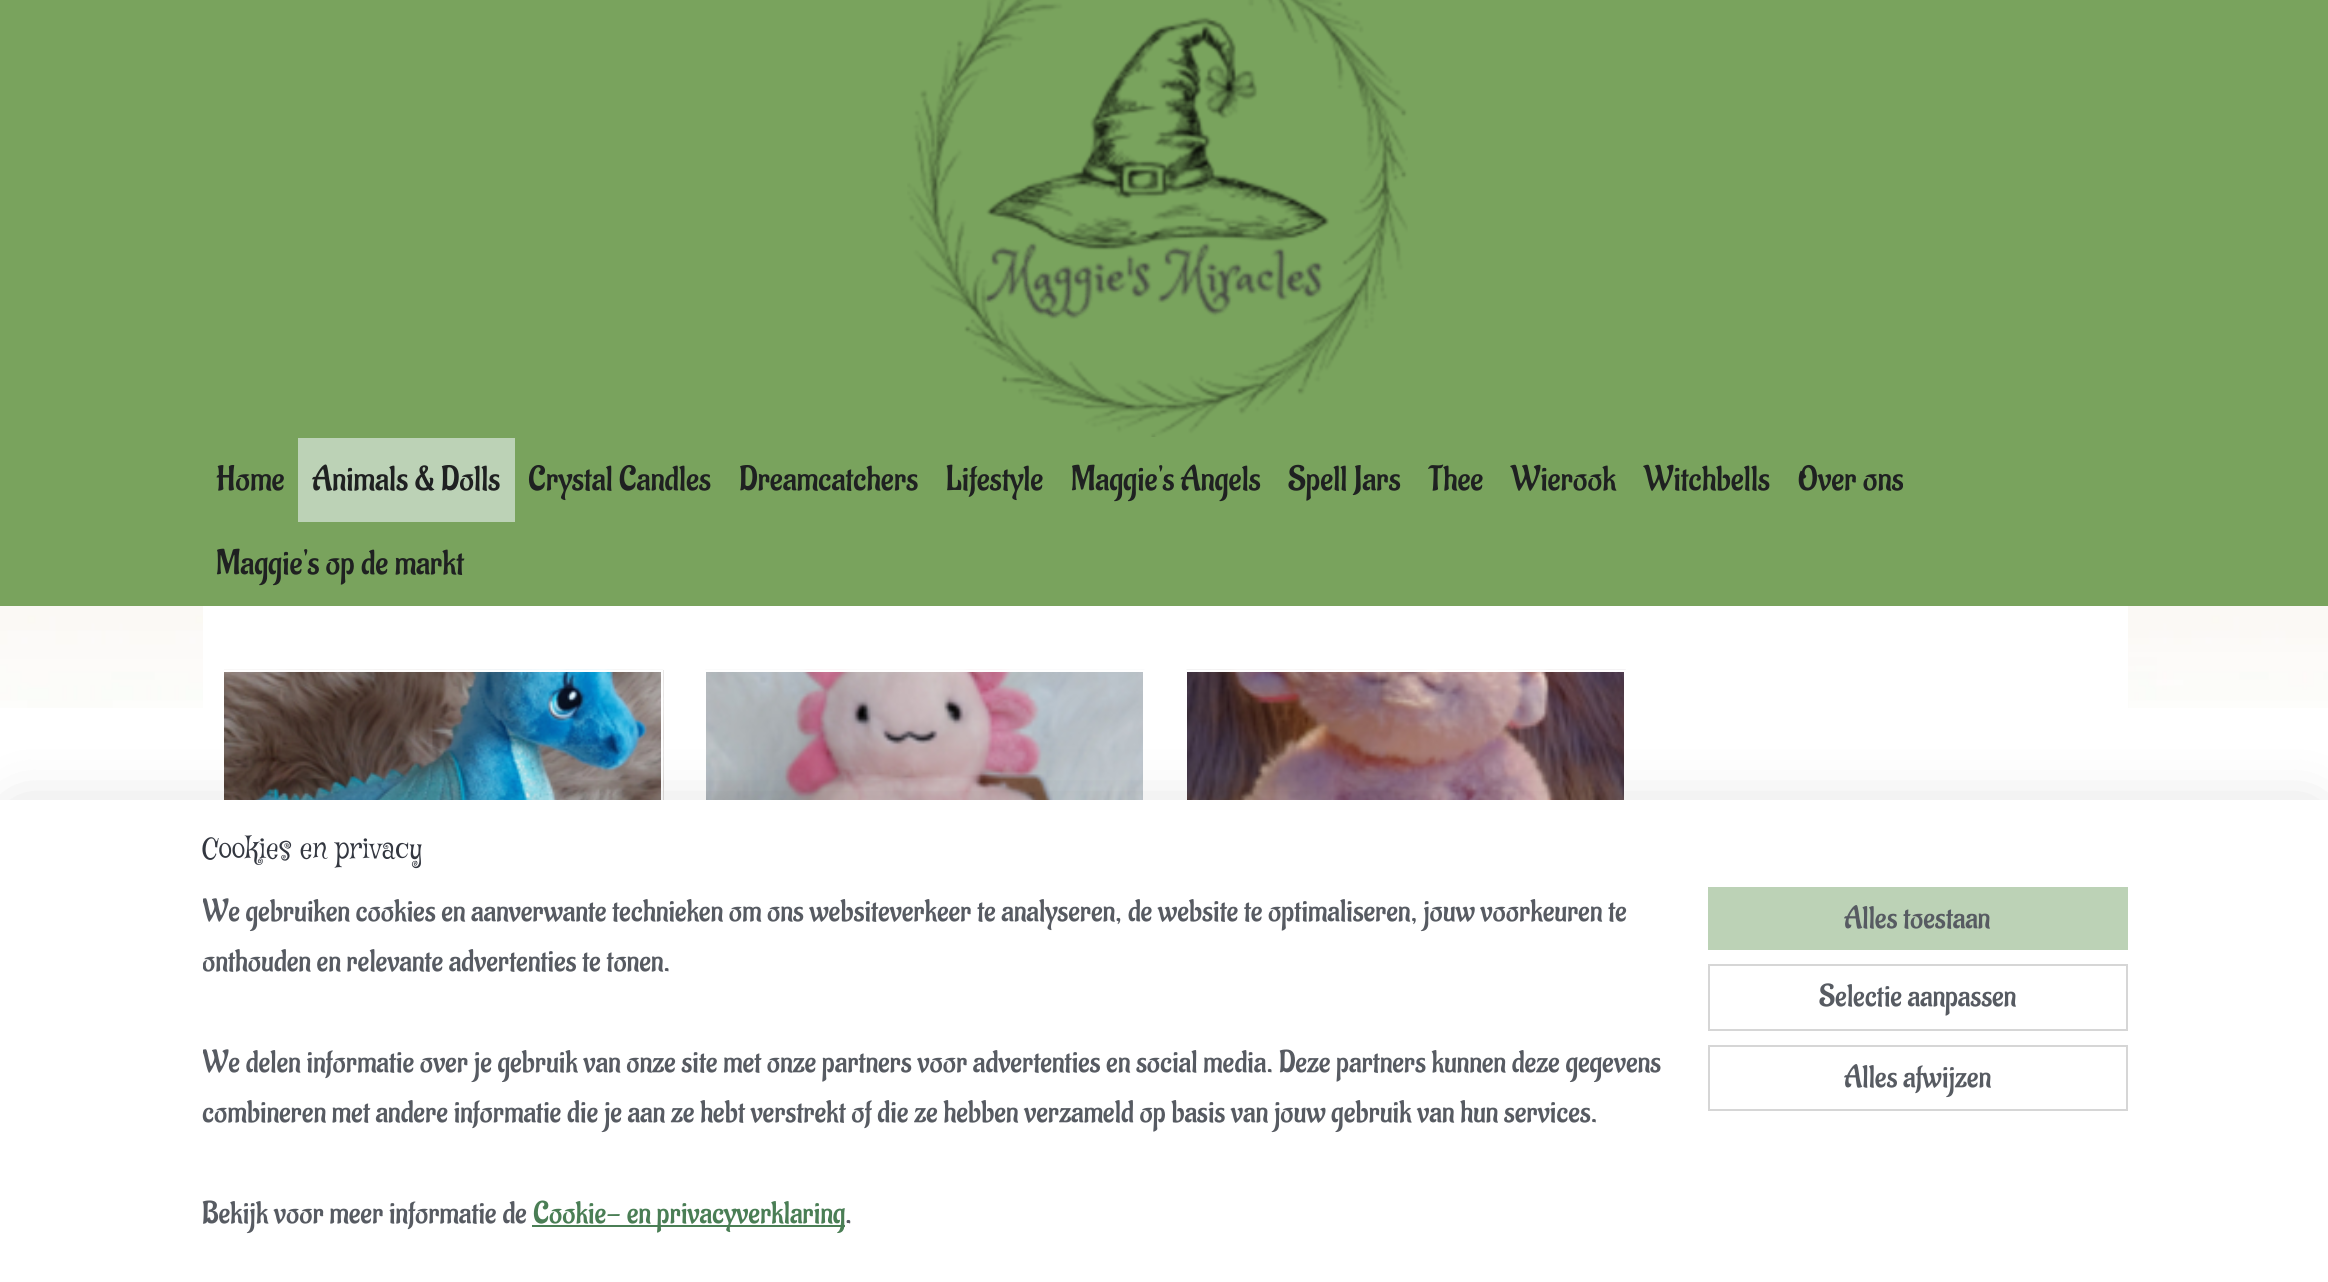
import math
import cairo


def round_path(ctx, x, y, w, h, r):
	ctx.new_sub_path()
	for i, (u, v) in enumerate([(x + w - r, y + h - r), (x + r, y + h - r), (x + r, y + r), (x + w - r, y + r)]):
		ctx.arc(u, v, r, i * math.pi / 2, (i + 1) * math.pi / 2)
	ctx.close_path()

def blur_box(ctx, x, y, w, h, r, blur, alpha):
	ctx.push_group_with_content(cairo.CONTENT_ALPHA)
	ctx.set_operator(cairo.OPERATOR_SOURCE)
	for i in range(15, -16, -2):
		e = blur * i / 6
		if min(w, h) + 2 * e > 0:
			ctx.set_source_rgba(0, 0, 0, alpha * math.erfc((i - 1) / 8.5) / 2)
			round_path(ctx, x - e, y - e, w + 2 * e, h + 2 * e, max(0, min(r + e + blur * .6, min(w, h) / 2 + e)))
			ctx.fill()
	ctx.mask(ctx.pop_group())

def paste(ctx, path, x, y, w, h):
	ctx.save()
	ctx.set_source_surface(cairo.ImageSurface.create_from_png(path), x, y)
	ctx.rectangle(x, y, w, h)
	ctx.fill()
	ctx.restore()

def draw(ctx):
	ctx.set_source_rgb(1, 1, 1)
	ctx.paint()
	ctx.set_source_rgb(0.475, 0.639, 0.365)
	ctx.rectangle(0, 0, 2328, 606)
	ctx.fill()
	paste(ctx, 'media/1.png', 907, 0, 501, 437)
	ctx.select_font_face('Aladin')
	ctx.set_font_size(35)
	ctx.set_source_rgb(0.122, 0.129, 0.129)
	ctx.move_to(216, 490)
	ctx.show_text('Home')
	ctx.set_source_rgb(0.737, 0.824, 0.714)
	ctx.rectangle(298, 438, 217, 84)
	ctx.fill()
	ctx.set_source_rgb(0.122, 0.129, 0.129)
	for x, y, s in [
		(312, 490, 'Animals & Dolls'),
		(528, 490, 'Crystal Candles'),
		(739, 490, 'Dreamcatchers'),
		(946, 490, 'Lifestyle'),
		(1071, 490, 'Maggie\'s Angels'),
		(1288, 490, 'Spell Jars'),
		(1429, 490, 'Thee'),
		(1511, 490, 'Wierook'),
		(1644, 490, 'Witchbells'),
		(1798, 490, 'Over ons'),
		(216, 574, 'Maggie\'s op de markt'),
	]:
		ctx.move_to(x, y)
		ctx.show_text(s)
	paste(ctx, 'media/2.png', 0, 606, 2328, 102)
	ctx.set_source_rgb(1, 1, 1)
	ctx.rectangle(203, 606, 1925, 102)
	ctx.fill()
	paste(ctx, 'media/3.png', 224, 669, 440, 131)
	ctx.rectangle(223, 671, 439, 261)
	ctx.stroke()
	paste(ctx, 'media/4.png', 705, 669, 440, 131)
	ctx.rectangle(705, 671, 439, 261)
	ctx.stroke()
	paste(ctx, 'media/5.png', 1186, 669, 440, 131)
	ctx.rectangle(1186, 671, 439, 261)
	ctx.stroke()
	ctx.set_source_rgb(0, 0, 0)
	blur_box(ctx, 18, 817, 2294, 448, 0, 31.5, 0.2)
	ctx.set_source_rgb(1, 1, 1)
	ctx.rectangle(0, 800, 2328, 482)
	ctx.fill()
	ctx.select_font_face('Mystery Quest')
	ctx.set_font_size(28)
	ctx.set_source_rgb(0.2, 0.216, 0.251)
	ctx.move_to(202, 858)
	ctx.show_text('Cookies en privacy')
	ctx.save()
	ctx.rectangle(203, 887, 1463, 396)
	ctx.clip()
	ctx.select_font_face('Aladin')
	ctx.set_font_size(31.5)
	ctx.set_source_rgb(0.341, 0.357, 0.384)
	for x, y, s in [
		(202, 921, 'We gebruiken cookies en aanverwante technieken om ons websiteverkeer te analyseren, de website te optimaliseren, jouw voorkeuren te'),
		(202, 971, 'onthouden en relevante advertenties te tonen.'),
		(202, 1072, 'We delen informatie over je gebruik van onze site met onze partners voor advertenties en social media. Deze partners kunnen deze gegevens'),
	]:
		ctx.move_to(x, y)
		ctx.show_text(s)
	ctx.restore()
	ctx.select_font_face('Aladin')
	ctx.set_font_size(31.5)
	ctx.set_source_rgb(0.341, 0.357, 0.384)
	ctx.move_to(202, 1122)
	ctx.show_text('combineren met andere informatie die je aan ze hebt verstrekt of die ze hebben verzameld op basis van jouw gebruik van hun services.')
	ctx.move_to(202, 1223)
	ctx.show_text('Bekijk voor meer informatie de')
	ctx.set_source_rgb(0.29, 0.494, 0.333)
	ctx.rectangle(532, 1225, 313, 2)
	ctx.fill()
	ctx.move_to(533, 1223)
	ctx.show_text('Cookie- en privacyverklaring')
	ctx.set_source_rgb(0.341, 0.357, 0.384)
	ctx.move_to(845, 1223)
	ctx.show_text('.')
	ctx.set_source_rgb(0.737, 0.824, 0.714)
	ctx.rectangle(1708, 887, 420, 63)
	ctx.fill()
	ctx.set_source_rgb(0.341, 0.357, 0.384)
	ctx.move_to(1844, 928)
	ctx.show_text('Alles toestaan')
	ctx.rectangle(1709, 965, 418, 65)
	ctx.set_source_rgb(0.839, 0.839, 0.839)
	ctx.stroke()
	ctx.set_source_rgb(0.341, 0.357, 0.384)
	ctx.move_to(1819, 1006)
	ctx.show_text('Selectie aanpassen')
	ctx.rectangle(1709, 1046, 418, 64)
	ctx.set_source_rgb(0.839, 0.839, 0.839)
	ctx.stroke()
	ctx.set_source_rgb(0.341, 0.357, 0.384)
	ctx.move_to(1844, 1087)
	ctx.show_text('Alles afwijzen')


surface = cairo.ImageSurface(cairo.FORMAT_RGB24, 2328, 1282)
ctx = cairo.Context(surface)
options = cairo.FontOptions()
options.set_hint_metrics(cairo.HINT_METRICS_OFF)
options.set_hint_style(cairo.HINT_STYLE_NONE)
ctx.set_font_options(options)
ctx.set_miter_limit(4)
draw(ctx)
surface.write_to_png('image.png')
